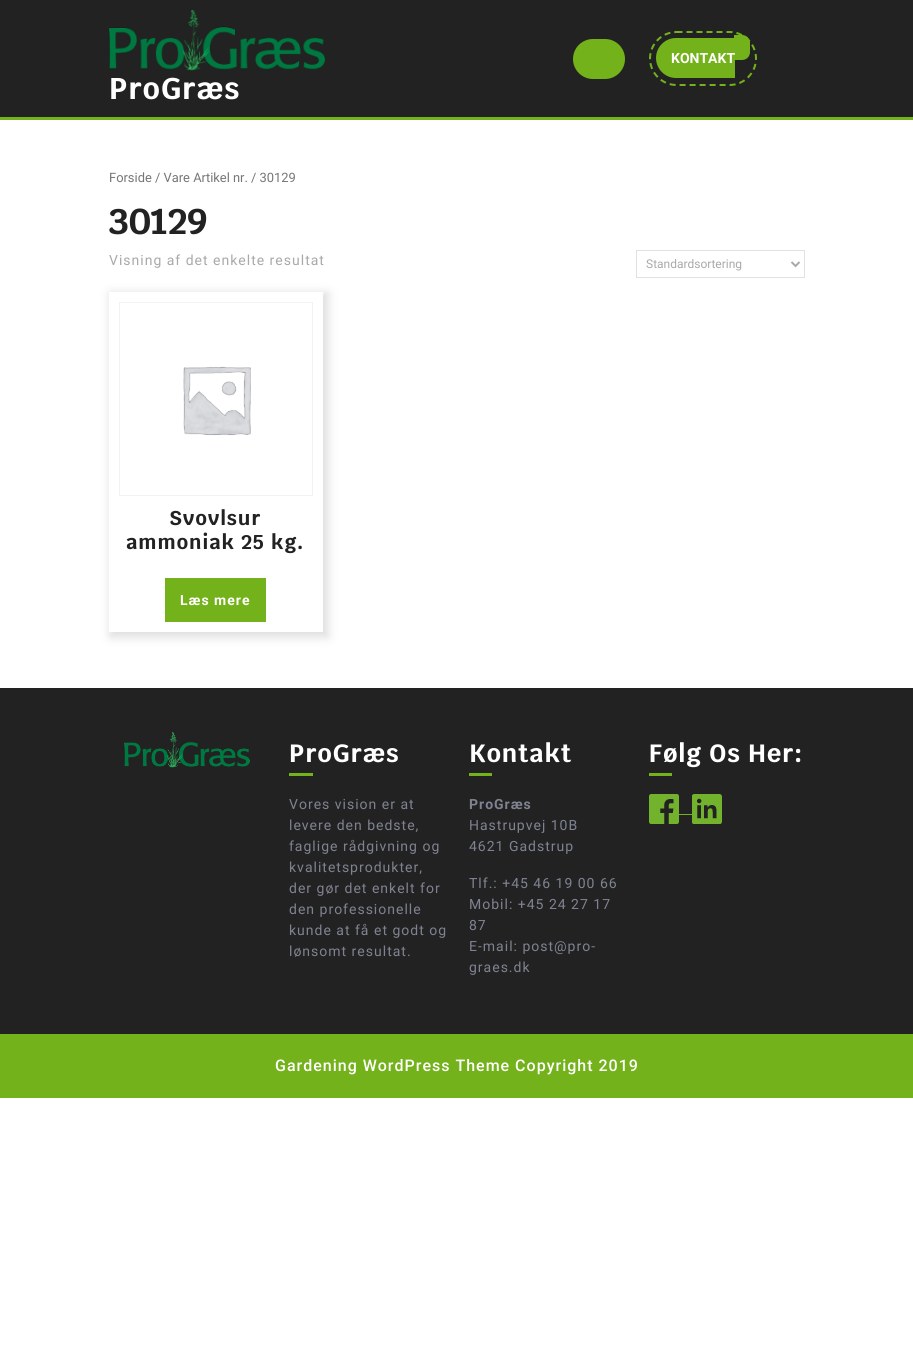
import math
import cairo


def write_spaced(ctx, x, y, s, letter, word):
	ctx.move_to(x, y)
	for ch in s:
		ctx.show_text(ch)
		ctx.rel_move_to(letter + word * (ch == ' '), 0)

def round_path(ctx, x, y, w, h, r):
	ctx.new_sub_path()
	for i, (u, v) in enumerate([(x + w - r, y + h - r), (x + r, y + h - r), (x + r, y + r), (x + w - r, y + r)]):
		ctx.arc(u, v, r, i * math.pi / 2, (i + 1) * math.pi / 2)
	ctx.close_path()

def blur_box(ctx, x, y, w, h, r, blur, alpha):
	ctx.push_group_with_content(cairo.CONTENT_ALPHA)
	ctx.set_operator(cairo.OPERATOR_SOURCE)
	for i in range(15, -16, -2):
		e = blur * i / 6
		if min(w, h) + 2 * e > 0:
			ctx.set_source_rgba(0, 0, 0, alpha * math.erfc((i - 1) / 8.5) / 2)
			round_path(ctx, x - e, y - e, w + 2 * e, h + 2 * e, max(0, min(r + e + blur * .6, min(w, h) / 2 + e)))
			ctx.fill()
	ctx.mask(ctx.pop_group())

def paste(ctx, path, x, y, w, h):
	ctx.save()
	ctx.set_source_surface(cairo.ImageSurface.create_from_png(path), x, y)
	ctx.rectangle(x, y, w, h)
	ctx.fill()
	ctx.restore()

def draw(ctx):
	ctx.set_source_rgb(1, 1, 1)
	ctx.paint()
	ctx.set_source_rgb(0.133, 0.133, 0.133)
	ctx.rectangle(0, 0, 913, 117)
	ctx.fill()
	ctx.set_source_rgb(0.451, 0.698, 0.102)
	ctx.rectangle(0, 117, 913, 3)
	ctx.fill()
	round_path(ctx, 573, 39, 52, 40, 20)
	ctx.fill()
	ctx.new_path()
	ctx.move_to(676.5, 32)
	ctx.line_to(729.5, 32)
	ctx.curve_to(744, 32, 756, 44, 756, 58.5)
	ctx.curve_to(756, 73, 744, 85, 729.5, 85)
	ctx.line_to(676.5, 85)
	ctx.curve_to(662, 85, 650, 73, 650, 58.5)
	ctx.curve_to(650, 44, 662, 32, 676.5, 32)
	ctx.close_path()
	ctx.set_dash([6, 4])
	ctx.stroke()
	ctx.new_path()
	ctx.move_to(676, 38)
	ctx.line_to(735, 38)
	ctx.line_to(735, 78)
	ctx.line_to(676, 78)
	ctx.curve_to(665, 78, 656, 69, 656, 58)
	ctx.curve_to(656, 47, 665, 38, 676, 38)
	ctx.close_path()
	ctx.fill()
	ctx.new_path()
	ctx.move_to(734, 35)
	ctx.line_to(742, 35)
	ctx.curve_to(746.5, 35, 750, 38.5, 750, 43)
	ctx.line_to(750, 52)
	ctx.curve_to(750, 56.5, 746.5, 60, 742, 60)
	ctx.line_to(734, 60)
	ctx.close_path()
	ctx.fill()
	ctx.select_font_face('Roboto', cairo.FONT_SLANT_NORMAL, cairo.FONT_WEIGHT_BOLD)
	ctx.set_font_size(14)
	ctx.set_source_rgb(1, 1, 1)
	ctx.move_to(671, 63)
	ctx.show_text('KONTAKT')
	paste(ctx, 'media/1.png', 109, 10, 216, 61)
	ctx.select_font_face('Krub', cairo.FONT_SLANT_NORMAL, cairo.FONT_WEIGHT_BOLD)
	ctx.set_font_size(30)
	write_spaced(ctx, 109, 99, 'ProGræs', 1, 0)
	ctx.select_font_face('Roboto')
	ctx.set_font_size(12.9)
	ctx.set_source_rgb(0.463, 0.463, 0.463)
	ctx.move_to(109, 182)
	ctx.show_text('Forside / Vare Artikel nr. / 30129')
	ctx.select_font_face('Krub', cairo.FONT_SLANT_NORMAL, cairo.FONT_WEIGHT_BOLD)
	ctx.set_font_size(36)
	ctx.set_source_rgb(0.133, 0.133, 0.133)
	ctx.move_to(109, 234)
	ctx.show_text('30129')
	ctx.select_font_face('Roboto')
	ctx.set_font_size(14)
	ctx.set_source_rgb(0.663, 0.663, 0.663)
	write_spaced(ctx, 109, 265, 'Visning af det enkelte resultat', 1, 0)
	ctx.rectangle(636.5, 250.5, 168, 27)
	ctx.set_source_rgb(0.882, 0.882, 0.882)
	ctx.set_line_width(1)
	ctx.set_dash([])
	ctx.stroke()
	ctx.new_path()
	ctx.move_to(791.5, 262)
	ctx.line_to(795.5, 266)
	ctx.line_to(799.5, 262)
	ctx.set_source_rgb(0.663, 0.663, 0.663)
	ctx.set_line_width(2)
	ctx.stroke()
	ctx.set_font_size(12)
	ctx.move_to(646, 268)
	ctx.show_text('Standardsortering')
	ctx.save()
	ctx.set_fill_rule(cairo.FILL_RULE_EVEN_ODD)
	ctx.new_path()
	ctx.move_to(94, 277)
	ctx.line_to(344, 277)
	ctx.line_to(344, 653)
	ctx.line_to(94, 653)
	ctx.close_path()
	ctx.move_to(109, 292)
	ctx.line_to(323, 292)
	ctx.line_to(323, 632)
	ctx.line_to(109, 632)
	ctx.close_path()
	ctx.clip()
	ctx.set_source_rgb(0.867, 0.867, 0.867)
	blur_box(ctx, 110, 293, 218, 344, 0, 5, 1)
	ctx.restore()
	ctx.rectangle(119.5, 302.5, 193, 193)
	ctx.set_source_rgb(0.949, 0.949, 0.949)
	ctx.set_line_width(1)
	ctx.stroke()
	paste(ctx, 'media/2.png', 183, 366, 68, 70)
	ctx.select_font_face('Krub', cairo.FONT_SLANT_NORMAL, cairo.FONT_WEIGHT_BOLD)
	ctx.set_font_size(20)
	ctx.set_source_rgb(0.133, 0.133, 0.133)
	write_spaced(ctx, 169, 525, 'Svovlsur', 1, 0)
	write_spaced(ctx, 126, 549, 'ammoniak 25 kg.', 1, 0)
	ctx.set_source_rgb(0.451, 0.698, 0.102)
	ctx.rectangle(165, 578, 101, 44)
	ctx.fill()
	ctx.select_font_face('Roboto', cairo.FONT_SLANT_NORMAL, cairo.FONT_WEIGHT_BOLD)
	ctx.set_font_size(14)
	ctx.set_source_rgb(1, 1, 1)
	write_spaced(ctx, 180, 605, 'Læs mere', 1, 0)
	ctx.set_source_rgb(0.133, 0.133, 0.133)
	ctx.rectangle(0, 688, 913, 346)
	ctx.fill()
	paste(ctx, 'media/3.png', 124, 732, 126, 36)
	ctx.select_font_face('Krub', cairo.FONT_SLANT_NORMAL, cairo.FONT_WEIGHT_BOLD)
	ctx.set_font_size(25)
	ctx.set_source_rgb(1, 1, 1)
	write_spaced(ctx, 289, 762, 'ProGræs', 1, 0)
	ctx.set_source_rgb(0.451, 0.698, 0.102)
	ctx.rectangle(289, 773, 24, 3)
	ctx.fill()
	ctx.select_font_face('Roboto')
	ctx.set_font_size(14)
	ctx.set_source_rgb(0.498, 0.514, 0.569)
	for x, y, s in [
		(289, 809, 'Vores vision er at'),
		(289, 830, 'levere den bedste,'),
		(289, 851, 'faglige rådgivning og'),
		(289, 872, 'kvalitetsprodukter,'),
		(289, 893, 'der gør det enkelt for'),
		(289, 914, 'den professionelle'),
		(289, 935, 'kunde at få et godt og'),
		(289, 956, 'lønsomt resultat.'),
	]:
		write_spaced(ctx, x, y, s, 1, 0)
	ctx.select_font_face('Krub', cairo.FONT_SLANT_NORMAL, cairo.FONT_WEIGHT_BOLD)
	ctx.set_font_size(25)
	ctx.set_source_rgb(1, 1, 1)
	write_spaced(ctx, 469, 762, 'Kontakt', 1, 0)
	ctx.set_source_rgb(0.451, 0.698, 0.102)
	ctx.rectangle(469, 773, 23, 3)
	ctx.fill()
	ctx.select_font_face('Roboto', cairo.FONT_SLANT_NORMAL, cairo.FONT_WEIGHT_BOLD)
	ctx.set_font_size(14)
	ctx.set_source_rgb(0.498, 0.514, 0.569)
	write_spaced(ctx, 469, 809, 'ProGræs', 1, 0)
	ctx.select_font_face('Roboto')
	for x, y, s in [
		(469, 830, 'Hastrupvej 10B'),
		(469, 851, '4621 Gadstrup'),
		(469, 888, 'Tlf.: +45 46 19 00 66'),
		(469, 909, 'Mobil: +45 24 27 17'),
		(469, 930, '87'),
		(469, 951, 'E-mail: post@pro-'),
		(469, 972, 'graes.dk'),
	]:
		write_spaced(ctx, x, y, s, 1, 0)
	ctx.select_font_face('Krub', cairo.FONT_SLANT_NORMAL, cairo.FONT_WEIGHT_BOLD)
	ctx.set_font_size(25)
	ctx.set_source_rgb(1, 1, 1)
	write_spaced(ctx, 649, 762, 'Følg Os Her:', 1, 0)
	ctx.set_source_rgb(0.451, 0.698, 0.102)
	ctx.rectangle(649, 773, 23, 3)
	ctx.fill()
	paste(ctx, 'media/4.png', 649, 794, 30, 30)
	ctx.rectangle(679, 814, 13, 1)
	ctx.fill()
	paste(ctx, 'media/5.png', 692, 794, 30, 30)
	ctx.rectangle(0, 1034, 913, 64)
	ctx.fill()
	ctx.select_font_face('Roboto Medium')
	ctx.set_font_size(16)
	ctx.set_source_rgb(1, 1, 1)
	write_spaced(ctx, 275, 1071, 'Gardening WordPress Theme Copyright 2019', 1, 0)


surface = cairo.ImageSurface(cairo.FORMAT_RGB24, 913, 1351)
ctx = cairo.Context(surface)
options = cairo.FontOptions()
options.set_hint_metrics(cairo.HINT_METRICS_OFF)
options.set_hint_style(cairo.HINT_STYLE_NONE)
ctx.set_font_options(options)
ctx.set_miter_limit(4)
draw(ctx)
surface.write_to_png('image.png')
